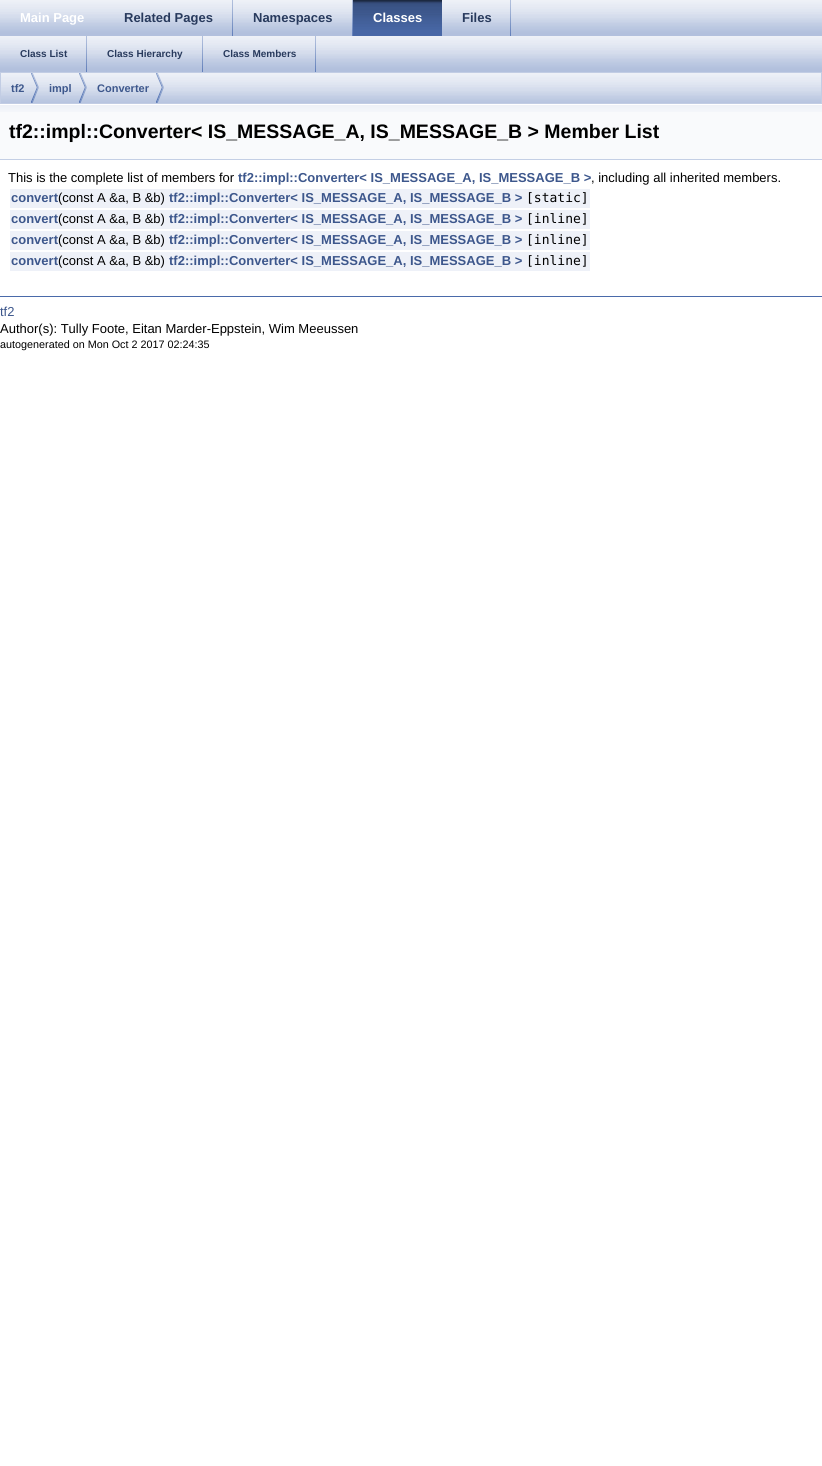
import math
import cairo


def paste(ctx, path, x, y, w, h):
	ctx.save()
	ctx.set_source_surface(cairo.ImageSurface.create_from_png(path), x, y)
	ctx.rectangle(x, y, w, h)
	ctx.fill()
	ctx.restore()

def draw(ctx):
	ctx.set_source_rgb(1, 1, 1)
	ctx.paint()
	paste(ctx, 'media/1.png', 0, 0, 822, 36)
	ctx.select_font_face('Liberation Sans', cairo.FONT_SLANT_NORMAL, cairo.FONT_WEIGHT_BOLD)
	ctx.set_font_size(13)
	ctx.set_source_rgb(1, 1, 1)
	ctx.move_to(20, 22)
	ctx.show_text('Main Page')
	paste(ctx, 'media/2.png', 232, 0, 1, 36)
	ctx.set_source_rgb(0.157, 0.227, 0.365)
	ctx.move_to(124, 22)
	ctx.show_text('Related Pages')
	paste(ctx, 'media/2.png', 352, 0, 1, 36)
	ctx.move_to(253, 22)
	ctx.show_text('Namespaces')
	paste(ctx, 'media/3.png', 353, 0, 89, 36)
	ctx.set_source_rgb(1, 1, 1)
	ctx.move_to(373, 22)
	ctx.show_text('Classes')
	paste(ctx, 'media/2.png', 510, 0, 1, 36)
	ctx.set_source_rgb(0.157, 0.227, 0.365)
	ctx.move_to(462, 22)
	ctx.show_text('Files')
	paste(ctx, 'media/1.png', 0, 36, 822, 36)
	paste(ctx, 'media/2.png', 86, 36, 1, 36)
	ctx.set_font_size(10)
	ctx.move_to(20, 57)
	ctx.show_text('Class List')
	paste(ctx, 'media/2.png', 202, 36, 1, 36)
	ctx.move_to(107, 57)
	ctx.show_text('Class Hierarchy')
	paste(ctx, 'media/2.png', 315, 36, 1, 36)
	ctx.move_to(223, 57)
	ctx.show_text('Class Members')
	paste(ctx, 'media/4.png', 1, 73, 820, 30)
	ctx.rectangle(0.5, 72.5, 821, 31)
	ctx.set_source_rgb(0.761, 0.804, 0.894)
	ctx.set_line_width(1)
	ctx.stroke()
	paste(ctx, 'media/5.png', 31, 73, 8, 30)
	ctx.set_font_size(11)
	ctx.set_source_rgb(0.239, 0.341, 0.549)
	ctx.move_to(11, 92)
	ctx.show_text('tf2')
	paste(ctx, 'media/5.png', 79, 73, 8, 30)
	ctx.move_to(49, 92)
	ctx.show_text('impl')
	paste(ctx, 'media/5.png', 156, 73, 8, 30)
	ctx.move_to(97, 92)
	ctx.show_text('Converter')
	ctx.set_source_rgb(0.976, 0.98, 0.988)
	ctx.rectangle(0, 112, 822, 47)
	ctx.fill()
	paste(ctx, 'media/6.png', 0, 104, 822, 8)
	ctx.set_source_rgb(0.769, 0.812, 0.898)
	ctx.rectangle(0, 159, 822, 1)
	ctx.fill()
	ctx.set_font_size(19.5)
	ctx.set_source_rgb(0, 0, 0)
	ctx.move_to(9, 138)
	ctx.show_text('tf2::impl::Converter< IS_MESSAGE_A, IS_MESSAGE_B > Member List')
	ctx.select_font_face('Liberation Sans')
	ctx.set_font_size(13)
	ctx.move_to(8, 182)
	ctx.show_text('This is the complete list of members for')
	ctx.select_font_face('Liberation Sans', cairo.FONT_SLANT_NORMAL, cairo.FONT_WEIGHT_BOLD)
	ctx.set_source_rgb(0.239, 0.341, 0.549)
	ctx.move_to(238, 182)
	ctx.show_text('tf2::impl::Converter< IS_MESSAGE_A, IS_MESSAGE_B >')
	ctx.select_font_face('Liberation Sans')
	ctx.set_source_rgb(0, 0, 0)
	ctx.move_to(591, 182)
	ctx.show_text(', including all inherited members.')
	ctx.set_source_rgb(0.933, 0.945, 0.969)
	ctx.rectangle(10, 189, 580, 19)
	ctx.fill()
	ctx.select_font_face('Liberation Sans', cairo.FONT_SLANT_NORMAL, cairo.FONT_WEIGHT_BOLD)
	ctx.set_source_rgb(0.239, 0.341, 0.549)
	ctx.move_to(11, 202)
	ctx.show_text('convert')
	ctx.select_font_face('Liberation Sans')
	ctx.set_source_rgb(0, 0, 0)
	ctx.move_to(58, 202)
	ctx.show_text('(const A &a, B &b)')
	ctx.select_font_face('Liberation Sans', cairo.FONT_SLANT_NORMAL, cairo.FONT_WEIGHT_BOLD)
	ctx.set_source_rgb(0.239, 0.341, 0.549)
	ctx.move_to(169, 202)
	ctx.show_text('tf2::impl::Converter< IS_MESSAGE_A, IS_MESSAGE_B >')
	ctx.select_font_face('DejaVu Sans Mono')
	ctx.set_source_rgb(0, 0, 0)
	ctx.move_to(526, 202)
	ctx.show_text('[static]')
	ctx.set_source_rgb(0.933, 0.945, 0.969)
	ctx.rectangle(10, 210, 580, 19)
	ctx.fill()
	ctx.select_font_face('Liberation Sans', cairo.FONT_SLANT_NORMAL, cairo.FONT_WEIGHT_BOLD)
	ctx.set_source_rgb(0.239, 0.341, 0.549)
	ctx.move_to(11, 223)
	ctx.show_text('convert')
	ctx.select_font_face('Liberation Sans')
	ctx.set_source_rgb(0, 0, 0)
	ctx.move_to(58, 223)
	ctx.show_text('(const A &a, B &b)')
	ctx.select_font_face('Liberation Sans', cairo.FONT_SLANT_NORMAL, cairo.FONT_WEIGHT_BOLD)
	ctx.set_source_rgb(0.239, 0.341, 0.549)
	ctx.move_to(169, 223)
	ctx.show_text('tf2::impl::Converter< IS_MESSAGE_A, IS_MESSAGE_B >')
	ctx.select_font_face('DejaVu Sans Mono')
	ctx.set_source_rgb(0, 0, 0)
	ctx.move_to(526, 223)
	ctx.show_text('[inline]')
	ctx.set_source_rgb(0.933, 0.945, 0.969)
	ctx.rectangle(10, 231, 580, 19)
	ctx.fill()
	ctx.select_font_face('Liberation Sans', cairo.FONT_SLANT_NORMAL, cairo.FONT_WEIGHT_BOLD)
	ctx.set_source_rgb(0.239, 0.341, 0.549)
	ctx.move_to(11, 244)
	ctx.show_text('convert')
	ctx.select_font_face('Liberation Sans')
	ctx.set_source_rgb(0, 0, 0)
	ctx.move_to(58, 244)
	ctx.show_text('(const A &a, B &b)')
	ctx.select_font_face('Liberation Sans', cairo.FONT_SLANT_NORMAL, cairo.FONT_WEIGHT_BOLD)
	ctx.set_source_rgb(0.239, 0.341, 0.549)
	ctx.move_to(169, 244)
	ctx.show_text('tf2::impl::Converter< IS_MESSAGE_A, IS_MESSAGE_B >')
	ctx.select_font_face('DejaVu Sans Mono')
	ctx.set_source_rgb(0, 0, 0)
	ctx.move_to(526, 244)
	ctx.show_text('[inline]')
	ctx.set_source_rgb(0.933, 0.945, 0.969)
	ctx.rectangle(10, 252, 580, 19)
	ctx.fill()
	ctx.select_font_face('Liberation Sans', cairo.FONT_SLANT_NORMAL, cairo.FONT_WEIGHT_BOLD)
	ctx.set_source_rgb(0.239, 0.341, 0.549)
	ctx.move_to(11, 265)
	ctx.show_text('convert')
	ctx.select_font_face('Liberation Sans')
	ctx.set_source_rgb(0, 0, 0)
	ctx.move_to(58, 265)
	ctx.show_text('(const A &a, B &b)')
	ctx.select_font_face('Liberation Sans', cairo.FONT_SLANT_NORMAL, cairo.FONT_WEIGHT_BOLD)
	ctx.set_source_rgb(0.239, 0.341, 0.549)
	ctx.move_to(169, 265)
	ctx.show_text('tf2::impl::Converter< IS_MESSAGE_A, IS_MESSAGE_B >')
	ctx.select_font_face('DejaVu Sans Mono')
	ctx.set_source_rgb(0, 0, 0)
	ctx.move_to(526, 265)
	ctx.show_text('[inline]')
	ctx.set_source_rgb(0.29, 0.416, 0.667)
	ctx.rectangle(0, 296, 822, 1)
	ctx.fill()
	ctx.select_font_face('Liberation Sans')
	ctx.set_source_rgb(0.239, 0.341, 0.549)
	ctx.move_to(0, 316)
	ctx.show_text('tf2')
	ctx.set_source_rgb(0, 0, 0)
	ctx.move_to(0, 333)
	ctx.show_text('Author(s): Tully Foote, Eitan Marder-Eppstein, Wim Meeussen')
	ctx.set_font_size(10.8)
	ctx.move_to(0, 348)
	ctx.show_text('autogenerated on Mon Oct 2 2017 02:24:35')


surface = cairo.ImageSurface(cairo.FORMAT_RGB24, 822, 1466)
ctx = cairo.Context(surface)
options = cairo.FontOptions()
options.set_hint_metrics(cairo.HINT_METRICS_OFF)
options.set_hint_style(cairo.HINT_STYLE_NONE)
ctx.set_font_options(options)
ctx.set_miter_limit(4)
draw(ctx)
surface.write_to_png('image.png')
